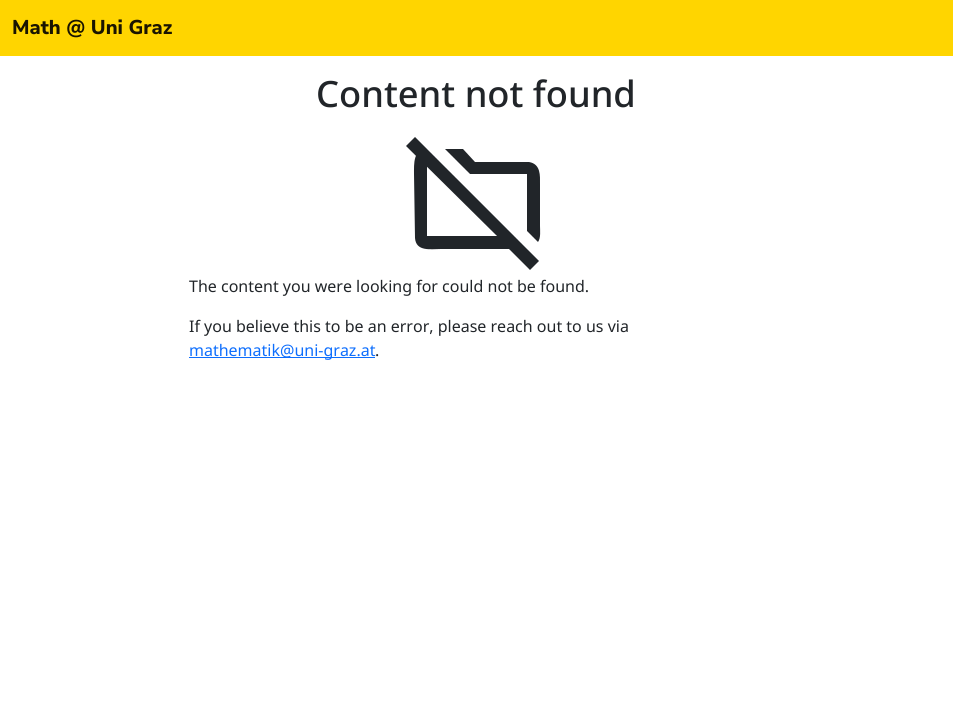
import math
import cairo


def draw(ctx):
	ctx.set_source_rgb(1, 1, 1)
	ctx.paint()
	ctx.set_source_rgb(1, 0.835, 0)
	ctx.rectangle(0, 0, 953, 56)
	ctx.fill()
	ctx.select_font_face('Nunito Sans ExtraBold')
	ctx.set_font_size(20)
	ctx.set_source_rgb(0.102, 0.082, 0)
	ctx.move_to(12, 34)
	ctx.show_text('Math @ Uni Graz')
	ctx.select_font_face('Noto Sans Medium')
	ctx.set_font_size(36.25)
	ctx.set_source_rgb(0.129, 0.145, 0.161)
	ctx.move_to(316, 107)
	ctx.show_text('Content not found')
	ctx.new_path()
	ctx.move_to(538, 242)
	ctx.line_to(527, 231)
	ctx.line_to(527, 174)
	ctx.line_to(470, 174)
	ctx.line_to(445, 149)
	ctx.line_to(463, 149)
	ctx.line_to(475, 162)
	ctx.line_to(529, 162)
	ctx.curve_to(541, 164, 540, 176, 540, 184)
	ctx.line_to(540, 226)
	ctx.curve_to(540, 230, 541, 238, 538, 242)
	ctx.move_to(530, 270)
	ctx.line_to(509, 249)
	ctx.line_to(441, 249)
	ctx.curve_to(431, 249, 416, 252, 415, 238)
	ctx.line_to(414, 174)
	ctx.curve_to(414, 164, 413, 149, 427, 149)
	ctx.line_to(440, 162)
	ctx.line_to(427, 162)
	ctx.line_to(427, 236)
	ctx.line_to(497, 236)
	ctx.line_to(406, 146)
	ctx.line_to(415, 137)
	ctx.line_to(539, 261)
	ctx.close_path()
	ctx.fill()
	ctx.select_font_face('Noto Sans')
	ctx.set_font_size(16)
	ctx.move_to(189, 292)
	ctx.show_text('The content you were looking for could not be found.')
	ctx.move_to(189, 332)
	ctx.show_text('If you believe this to be an error, please reach out to us via')
	ctx.set_source_rgb(0.051, 0.431, 0.992)
	ctx.rectangle(189, 357, 186, 1)
	ctx.fill()
	ctx.move_to(189, 356)
	ctx.show_text('mathematik@uni-graz.at')
	ctx.set_source_rgb(0.129, 0.145, 0.161)
	ctx.move_to(375, 356)
	ctx.show_text('.')


surface = cairo.ImageSurface(cairo.FORMAT_RGB24, 953, 705)
ctx = cairo.Context(surface)
options = cairo.FontOptions()
options.set_hint_metrics(cairo.HINT_METRICS_OFF)
options.set_hint_style(cairo.HINT_STYLE_NONE)
ctx.set_font_options(options)
ctx.set_miter_limit(4)
draw(ctx)
surface.write_to_png('image.png')
